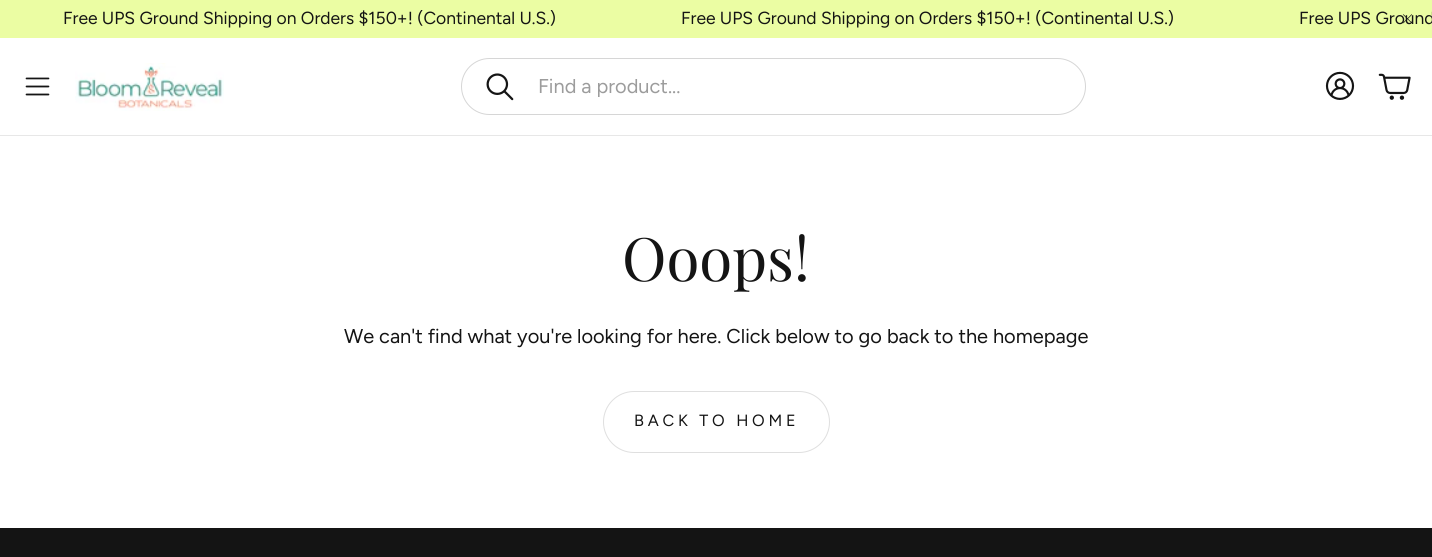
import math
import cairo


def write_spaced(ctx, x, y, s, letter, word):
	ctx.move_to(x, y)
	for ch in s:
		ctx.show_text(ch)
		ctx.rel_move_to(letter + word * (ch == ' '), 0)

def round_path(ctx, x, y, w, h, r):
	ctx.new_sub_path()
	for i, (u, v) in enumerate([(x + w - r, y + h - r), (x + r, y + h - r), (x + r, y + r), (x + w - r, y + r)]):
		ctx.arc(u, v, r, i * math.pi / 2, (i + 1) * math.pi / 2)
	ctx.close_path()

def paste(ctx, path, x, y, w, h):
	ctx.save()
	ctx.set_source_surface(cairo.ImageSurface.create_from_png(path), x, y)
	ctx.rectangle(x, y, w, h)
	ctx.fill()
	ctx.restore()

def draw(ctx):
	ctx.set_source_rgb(1, 1, 1)
	ctx.paint()
	ctx.set_source_rgb(0.918, 0.992, 0.639)
	ctx.rectangle(0, 0, 1432, 38)
	ctx.fill()
	ctx.select_font_face('Figtree')
	ctx.set_font_size(17.5)
	ctx.set_source_rgb(0.082, 0.082, 0.082)
	for x, y, s in [
		(63, 24, 'Free UPS Ground Shipping on Orders $150+! (Continental U.S.)'),
		(681, 24, 'Free UPS Ground Shipping on Orders $150+! (Continental U.S.)'),
		(1299, 24, 'Free UPS Ground'),
	]:
		ctx.move_to(x, y)
		ctx.show_text(s)
	paste(ctx, 'media/1.png', 1403, 14, 9, 10)
	ctx.set_source_rgb(0.906, 0.906, 0.906)
	ctx.rectangle(0, 135, 1432, 1)
	ctx.fill()
	paste(ctx, 'media/2.png', 25, 77, 25, 19)
	paste(ctx, 'media/3.png', 75, 63, 149, 48)
	round_path(ctx, 461.5, 58.5, 624, 56, 28)
	ctx.set_source_rgb(0.839, 0.839, 0.839)
	ctx.set_line_width(1)
	ctx.stroke()
	paste(ctx, 'media/4.png', 486, 73, 28, 28)
	ctx.set_font_size(20)
	ctx.set_source_rgb(0.612, 0.612, 0.612)
	ctx.move_to(538, 93)
	ctx.show_text('Find a product...')
	paste(ctx, 'media/5.png', 1325, 71, 30, 29)
	paste(ctx, 'media/6.png', 1378, 73, 33, 27)
	ctx.select_font_face('Playfair Display')
	ctx.set_font_size(60)
	ctx.set_source_rgb(0.082, 0.082, 0.082)
	ctx.move_to(622, 281)
	ctx.show_text('Ooops!')
	ctx.select_font_face('Figtree')
	ctx.set_font_size(20)
	ctx.move_to(344, 343)
	ctx.show_text('We can\'t find what you\'re looking for here. Click below to go back to the homepage')
	round_path(ctx, 603.5, 391.5, 226, 61, 30.5)
	ctx.set_source_rgb(0.875, 0.875, 0.875)
	ctx.stroke()
	ctx.set_font_size(16.25)
	ctx.set_source_rgb(0.082, 0.082, 0.082)
	write_spaced(ctx, 634, 426, 'BACK TO HOME', 3.75, 0)
	ctx.rectangle(0, 528, 1432, 29)
	ctx.fill()


surface = cairo.ImageSurface(cairo.FORMAT_RGB24, 1432, 557)
ctx = cairo.Context(surface)
options = cairo.FontOptions()
options.set_hint_metrics(cairo.HINT_METRICS_OFF)
options.set_hint_style(cairo.HINT_STYLE_NONE)
ctx.set_font_options(options)
ctx.set_miter_limit(4)
draw(ctx)
surface.write_to_png('image.png')
